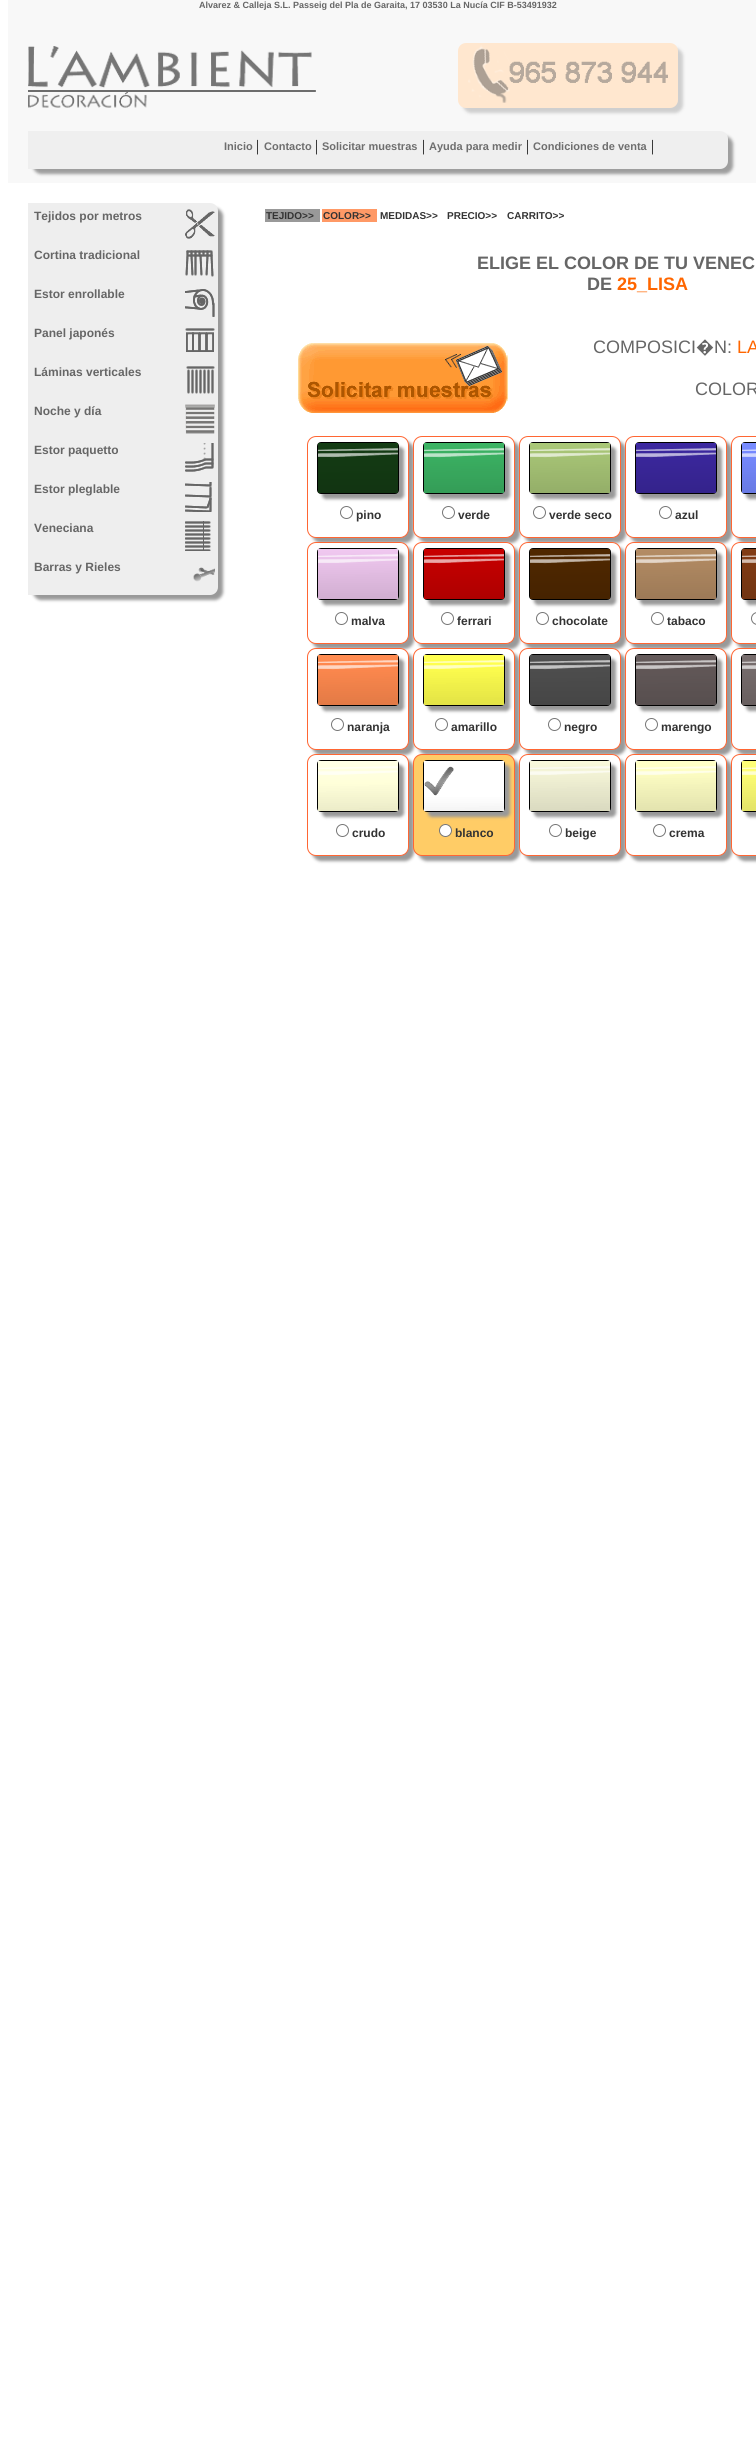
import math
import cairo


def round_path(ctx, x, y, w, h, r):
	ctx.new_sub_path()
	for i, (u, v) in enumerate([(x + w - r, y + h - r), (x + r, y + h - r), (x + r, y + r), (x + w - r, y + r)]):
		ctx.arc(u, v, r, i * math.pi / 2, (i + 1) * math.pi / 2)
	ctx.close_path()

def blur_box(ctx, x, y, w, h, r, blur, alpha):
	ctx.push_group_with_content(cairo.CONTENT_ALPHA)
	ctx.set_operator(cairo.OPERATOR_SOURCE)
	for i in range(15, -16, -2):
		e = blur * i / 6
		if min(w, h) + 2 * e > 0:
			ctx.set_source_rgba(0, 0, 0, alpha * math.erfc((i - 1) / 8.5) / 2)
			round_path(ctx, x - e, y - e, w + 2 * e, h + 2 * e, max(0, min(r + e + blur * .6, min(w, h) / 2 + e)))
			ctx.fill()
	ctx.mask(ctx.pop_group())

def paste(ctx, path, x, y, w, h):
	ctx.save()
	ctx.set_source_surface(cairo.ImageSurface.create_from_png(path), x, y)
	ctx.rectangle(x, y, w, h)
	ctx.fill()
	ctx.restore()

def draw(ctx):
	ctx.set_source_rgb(1, 1, 1)
	ctx.paint()
	ctx.set_source_rgb(0.969, 0.969, 0.969)
	ctx.rectangle(8, 0, 748, 183)
	ctx.fill()
	ctx.select_font_face('Liberation Sans', cairo.FONT_SLANT_NORMAL, cairo.FONT_WEIGHT_BOLD)
	ctx.set_font_size(9)
	ctx.set_source_rgb(0.4, 0.4, 0.4)
	ctx.move_to(199, 8)
	ctx.show_text('Alvarez & Calleja S.L. Passeig del Pla de Garaita, 17 03530 La Nucía CIF B-53491932')
	paste(ctx, 'media/1.png', 28, 46, 288, 62)
	ctx.set_source_rgb(0.812, 0.812, 0.812)
	blur_box(ctx, 463, 48, 220, 65, 8, 1.5, 1)
	ctx.set_source_rgb(1, 0.906, 0.812)
	round_path(ctx, 458, 43, 220, 65, 8)
	ctx.fill()
	paste(ctx, 'media/2.png', 468, 45, 200, 58)
	ctx.set_source_rgb(0.62, 0.62, 0.62)
	blur_box(ctx, 33, 136, 700, 38, 8, 1.5, 1)
	ctx.set_source_rgb(0.937, 0.937, 0.937)
	ctx.new_path()
	ctx.move_to(28, 131)
	ctx.line_to(720, 131)
	ctx.curve_to(724.5, 131, 728, 134.5, 728, 139)
	ctx.line_to(728, 161)
	ctx.curve_to(728, 165.5, 724.5, 169, 720, 169)
	ctx.line_to(28, 169)
	ctx.close_path()
	ctx.fill()
	ctx.set_font_size(11)
	ctx.set_source_rgb(0.431, 0.431, 0.431)
	ctx.move_to(224, 150)
	ctx.show_text('Inicio')
	ctx.select_font_face('Liberation Serif')
	ctx.set_font_size(16)
	ctx.set_source_rgb(0.051, 0.051, 0.051)
	ctx.move_to(256, 151)
	ctx.show_text('|')
	ctx.select_font_face('Liberation Sans', cairo.FONT_SLANT_NORMAL, cairo.FONT_WEIGHT_BOLD)
	ctx.set_font_size(11)
	ctx.set_source_rgb(0.431, 0.431, 0.431)
	ctx.move_to(264, 150)
	ctx.show_text('Contacto')
	ctx.select_font_face('Liberation Serif')
	ctx.set_font_size(16)
	ctx.set_source_rgb(0.051, 0.051, 0.051)
	ctx.move_to(315, 151)
	ctx.show_text('|')
	ctx.select_font_face('Liberation Sans', cairo.FONT_SLANT_NORMAL, cairo.FONT_WEIGHT_BOLD)
	ctx.set_font_size(11)
	ctx.set_source_rgb(0.431, 0.431, 0.431)
	ctx.move_to(322, 150)
	ctx.show_text('Solicitar muestras')
	ctx.select_font_face('Liberation Serif')
	ctx.set_font_size(16)
	ctx.set_source_rgb(0.051, 0.051, 0.051)
	ctx.move_to(422, 151)
	ctx.show_text('|')
	ctx.select_font_face('Liberation Sans', cairo.FONT_SLANT_NORMAL, cairo.FONT_WEIGHT_BOLD)
	ctx.set_font_size(11)
	ctx.set_source_rgb(0.431, 0.431, 0.431)
	ctx.move_to(429, 150)
	ctx.show_text('Ayuda para medir')
	ctx.select_font_face('Liberation Serif')
	ctx.set_font_size(16)
	ctx.set_source_rgb(0.051, 0.051, 0.051)
	ctx.move_to(526, 151)
	ctx.show_text('|')
	ctx.select_font_face('Liberation Sans', cairo.FONT_SLANT_NORMAL, cairo.FONT_WEIGHT_BOLD)
	ctx.set_font_size(11)
	ctx.set_source_rgb(0.431, 0.431, 0.431)
	ctx.move_to(533, 150)
	ctx.show_text('Condiciones de venta')
	ctx.select_font_face('Liberation Serif')
	ctx.set_font_size(16)
	ctx.set_source_rgb(0.051, 0.051, 0.051)
	ctx.move_to(651, 151)
	ctx.show_text('|')
	ctx.set_source_rgb(0.6, 0.6, 0.6)
	blur_box(ctx, 33, 208, 190, 392, 8, 1.5, 1)
	ctx.set_source_rgb(0.933, 0.933, 0.933)
	ctx.new_path()
	ctx.move_to(28, 203)
	ctx.line_to(210, 203)
	ctx.curve_to(214.5, 203, 218, 206.5, 218, 211)
	ctx.line_to(218, 587)
	ctx.curve_to(218, 591.5, 214.5, 595, 210, 595)
	ctx.line_to(28, 595)
	ctx.close_path()
	ctx.fill()
	ctx.select_font_face('Liberation Sans', cairo.FONT_SLANT_NORMAL, cairo.FONT_WEIGHT_BOLD)
	ctx.set_font_size(12)
	ctx.set_source_rgb(0.4, 0.4, 0.4)
	ctx.move_to(34, 220)
	ctx.show_text('Tejidos por metros')
	paste(ctx, 'media/3.png', 185, 209, 30, 30)
	ctx.move_to(34, 259)
	ctx.show_text('Cortina tradicional')
	paste(ctx, 'media/4.png', 185, 250, 29, 27)
	ctx.move_to(34, 298)
	ctx.show_text('Estor enrollable')
	paste(ctx, 'media/5.png', 185, 289, 30, 28)
	ctx.move_to(34, 337)
	ctx.show_text('Panel japonés')
	paste(ctx, 'media/6.png', 185, 328, 30, 24)
	ctx.move_to(34, 376)
	ctx.show_text('Láminas verticales')
	paste(ctx, 'media/7.png', 186, 366, 29, 28)
	ctx.move_to(34, 415)
	ctx.show_text('Noche y día')
	paste(ctx, 'media/8.png', 185, 404, 30, 30)
	ctx.move_to(34, 454)
	ctx.show_text('Estor paquetto')
	paste(ctx, 'media/9.png', 185, 443, 29, 29)
	ctx.move_to(34, 493)
	ctx.show_text('Estor pleglable')
	paste(ctx, 'media/10.png', 185, 482, 27, 30)
	ctx.move_to(34, 532)
	ctx.show_text('Veneciana')
	paste(ctx, 'media/11.png', 185, 521, 26, 30)
	ctx.move_to(34, 571)
	ctx.show_text('Barras y Rieles')
	paste(ctx, 'media/12.png', 193, 567, 22, 15)
	ctx.set_source_rgb(0.6, 0.6, 0.6)
	ctx.rectangle(265, 209, 55, 13)
	ctx.fill()
	ctx.set_font_size(10)
	ctx.set_source_rgb(0.2, 0.2, 0.2)
	ctx.move_to(266, 219)
	ctx.show_text('TEJIDO>>')
	ctx.set_source_rgb(1, 0.6, 0.4)
	ctx.rectangle(322, 209, 55, 13)
	ctx.fill()
	ctx.set_source_rgb(0.2, 0.2, 0.2)
	for x, y, s in [
		(323, 219, 'COLOR>>'),
		(380, 219, 'MEDIDAS>>'),
		(447, 219, 'PRECIO>>'),
		(507, 219, 'CARRITO>>'),
	]:
		ctx.move_to(x, y)
		ctx.show_text(s)
	paste(ctx, 'media/13.png', 298, 343, 210, 70)
	ctx.set_font_size(18)
	ctx.set_source_rgb(0.4, 0.4, 0.4)
	ctx.move_to(477, 269)
	ctx.show_text('ELIGE EL COLOR DE TU VENEC')
	ctx.move_to(587, 290)
	ctx.show_text('DE')
	ctx.set_source_rgb(1, 0.4, 0)
	ctx.move_to(617, 290)
	ctx.show_text('25_LISA')
	ctx.select_font_face('Liberation Sans')
	ctx.set_source_rgb(0.4, 0.4, 0.4)
	ctx.move_to(593, 353)
	ctx.show_text('COMPOSICI')
	ctx.select_font_face('Noto Sans')
	ctx.move_to(696, 353)
	ctx.show_text('�')
	ctx.select_font_face('Liberation Sans')
	ctx.move_to(714, 353)
	ctx.show_text('N:')
	ctx.set_source_rgb(1, 0.4, 0)
	ctx.move_to(737, 353)
	ctx.show_text('LA')
	ctx.set_source_rgb(0.4, 0.4, 0.4)
	ctx.move_to(695, 395)
	ctx.show_text('COLOR')
	ctx.set_source_rgb(0.6, 0.6, 0.6)
	blur_box(ctx, 312, 441, 102, 102, 9, 1.5, 1)
	ctx.set_source_rgb(1, 1, 1)
	round_path(ctx, 307.5, 436.5, 101, 101, 8.5)
	ctx.fill_preserve()
	ctx.set_source_rgb(1, 0.4, 0.2)
	ctx.set_line_width(1)
	ctx.stroke()
	ctx.set_source_rgb(0.6, 0.6, 0.6)
	blur_box(ctx, 322, 447, 82, 52, 4, 1.5, 1)
	round_path(ctx, 317.5, 442.5, 81, 51, 3.5)
	ctx.set_source_rgb(0, 0, 0)
	ctx.stroke()
	paste(ctx, 'media/14.png', 318, 443, 80, 50)
	paste(ctx, 'media/15.png', 318, 448, 80, 10)
	ctx.arc(346.5, 512.5, 6, 0, 2 * math.pi)
	ctx.set_source_rgb(0.463, 0.463, 0.463)
	ctx.stroke()
	ctx.select_font_face('Liberation Sans', cairo.FONT_SLANT_NORMAL, cairo.FONT_WEIGHT_BOLD)
	ctx.set_font_size(12)
	ctx.set_source_rgb(0.2, 0.2, 0.2)
	ctx.move_to(356, 519)
	ctx.show_text('pino')
	ctx.set_source_rgb(0.6, 0.6, 0.6)
	blur_box(ctx, 418, 441, 102, 102, 9, 1.5, 1)
	ctx.set_source_rgb(1, 1, 1)
	round_path(ctx, 413.5, 436.5, 101, 101, 8.5)
	ctx.fill_preserve()
	ctx.set_source_rgb(1, 0.4, 0.2)
	ctx.stroke()
	ctx.set_source_rgb(0.6, 0.6, 0.6)
	blur_box(ctx, 428, 447, 82, 52, 4, 1.5, 1)
	round_path(ctx, 423.5, 442.5, 81, 51, 3.5)
	ctx.set_source_rgb(0, 0, 0)
	ctx.stroke()
	paste(ctx, 'media/16.png', 424, 443, 80, 50)
	paste(ctx, 'media/17.png', 424, 448, 80, 10)
	ctx.arc(448.5, 512.5, 6, 0, 2 * math.pi)
	ctx.set_source_rgb(0.463, 0.463, 0.463)
	ctx.stroke()
	ctx.set_source_rgb(0.2, 0.2, 0.2)
	ctx.move_to(458, 519)
	ctx.show_text('verde')
	ctx.set_source_rgb(0.6, 0.6, 0.6)
	blur_box(ctx, 524, 441, 102, 102, 9, 1.5, 1)
	ctx.set_source_rgb(1, 1, 1)
	round_path(ctx, 519.5, 436.5, 101, 101, 8.5)
	ctx.fill_preserve()
	ctx.set_source_rgb(1, 0.4, 0.2)
	ctx.stroke()
	ctx.set_source_rgb(0.6, 0.6, 0.6)
	blur_box(ctx, 534, 447, 82, 52, 4, 1.5, 1)
	round_path(ctx, 529.5, 442.5, 81, 51, 3.5)
	ctx.set_source_rgb(0, 0, 0)
	ctx.stroke()
	paste(ctx, 'media/18.png', 530, 443, 80, 50)
	paste(ctx, 'media/19.png', 530, 448, 80, 10)
	ctx.arc(539.5, 512.5, 6, 0, 2 * math.pi)
	ctx.set_source_rgb(0.463, 0.463, 0.463)
	ctx.stroke()
	ctx.set_source_rgb(0.2, 0.2, 0.2)
	ctx.move_to(549, 519)
	ctx.show_text('verde seco')
	ctx.set_source_rgb(0.6, 0.6, 0.6)
	blur_box(ctx, 630, 441, 102, 102, 9, 1.5, 1)
	ctx.set_source_rgb(1, 1, 1)
	round_path(ctx, 625.5, 436.5, 101, 101, 8.5)
	ctx.fill_preserve()
	ctx.set_source_rgb(1, 0.4, 0.2)
	ctx.stroke()
	ctx.set_source_rgb(0.6, 0.6, 0.6)
	blur_box(ctx, 640, 447, 82, 52, 4, 1.5, 1)
	round_path(ctx, 635.5, 442.5, 81, 51, 3.5)
	ctx.set_source_rgb(0, 0, 0)
	ctx.stroke()
	paste(ctx, 'media/20.png', 636, 443, 80, 50)
	paste(ctx, 'media/21.png', 636, 448, 80, 10)
	ctx.arc(665.5, 512.5, 6, 0, 2 * math.pi)
	ctx.set_source_rgb(0.463, 0.463, 0.463)
	ctx.stroke()
	ctx.set_source_rgb(0.2, 0.2, 0.2)
	ctx.move_to(675, 519)
	ctx.show_text('azul')
	ctx.set_source_rgb(0.6, 0.6, 0.6)
	blur_box(ctx, 736, 441, 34, 102, 9, 1.5, 1)
	ctx.set_source_rgb(1, 1, 1)
	round_path(ctx, 731.5, 436.5, 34, 101, 8.5)
	ctx.fill_preserve()
	ctx.set_source_rgb(1, 0.4, 0.2)
	ctx.stroke()
	ctx.set_source_rgb(0.6, 0.6, 0.6)
	blur_box(ctx, 746, 447, 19, 52, 4, 1.5, 1)
	round_path(ctx, 741.5, 442.5, 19, 51, 3.5)
	ctx.set_source_rgb(0, 0, 0)
	ctx.stroke()
	paste(ctx, 'media/22.png', 742, 443, 14, 50)
	paste(ctx, 'media/23.png', 742, 449, 14, 8)
	ctx.set_source_rgb(0.6, 0.6, 0.6)
	blur_box(ctx, 312, 547, 102, 102, 9, 1.5, 1)
	ctx.set_source_rgb(1, 1, 1)
	round_path(ctx, 307.5, 542.5, 101, 101, 8.5)
	ctx.fill_preserve()
	ctx.set_source_rgb(1, 0.4, 0.2)
	ctx.stroke()
	ctx.set_source_rgb(0.6, 0.6, 0.6)
	blur_box(ctx, 322, 553, 82, 52, 4, 1.5, 1)
	round_path(ctx, 317.5, 548.5, 81, 51, 3.5)
	ctx.set_source_rgb(0, 0, 0)
	ctx.stroke()
	paste(ctx, 'media/24.png', 318, 549, 80, 50)
	paste(ctx, 'media/25.png', 318, 554, 80, 9)
	ctx.arc(341.5, 618.5, 6, 0, 2 * math.pi)
	ctx.set_source_rgb(0.463, 0.463, 0.463)
	ctx.stroke()
	ctx.set_source_rgb(0.2, 0.2, 0.2)
	ctx.move_to(351, 625)
	ctx.show_text('malva')
	ctx.set_source_rgb(0.6, 0.6, 0.6)
	blur_box(ctx, 418, 547, 102, 102, 9, 1.5, 1)
	ctx.set_source_rgb(1, 1, 1)
	round_path(ctx, 413.5, 542.5, 101, 101, 8.5)
	ctx.fill_preserve()
	ctx.set_source_rgb(1, 0.4, 0.2)
	ctx.stroke()
	ctx.set_source_rgb(0.6, 0.6, 0.6)
	blur_box(ctx, 428, 553, 82, 52, 4, 1.5, 1)
	round_path(ctx, 423.5, 548.5, 81, 51, 3.5)
	ctx.set_source_rgb(0, 0, 0)
	ctx.stroke()
	paste(ctx, 'media/26.png', 424, 549, 80, 50)
	paste(ctx, 'media/27.png', 424, 554, 80, 10)
	ctx.arc(447.5, 618.5, 6, 0, 2 * math.pi)
	ctx.set_source_rgb(0.463, 0.463, 0.463)
	ctx.stroke()
	ctx.set_source_rgb(0.2, 0.2, 0.2)
	ctx.move_to(457, 625)
	ctx.show_text('ferrari')
	ctx.set_source_rgb(0.6, 0.6, 0.6)
	blur_box(ctx, 524, 547, 102, 102, 9, 1.5, 1)
	ctx.set_source_rgb(1, 1, 1)
	round_path(ctx, 519.5, 542.5, 101, 101, 8.5)
	ctx.fill_preserve()
	ctx.set_source_rgb(1, 0.4, 0.2)
	ctx.stroke()
	ctx.set_source_rgb(0.6, 0.6, 0.6)
	blur_box(ctx, 534, 553, 82, 52, 4, 1.5, 1)
	round_path(ctx, 529.5, 548.5, 81, 51, 3.5)
	ctx.set_source_rgb(0, 0, 0)
	ctx.stroke()
	paste(ctx, 'media/28.png', 530, 549, 80, 50)
	paste(ctx, 'media/29.png', 530, 554, 80, 10)
	ctx.arc(542.5, 618.5, 6, 0, 2 * math.pi)
	ctx.set_source_rgb(0.463, 0.463, 0.463)
	ctx.stroke()
	ctx.set_source_rgb(0.2, 0.2, 0.2)
	ctx.move_to(552, 625)
	ctx.show_text('chocolate')
	ctx.set_source_rgb(0.6, 0.6, 0.6)
	blur_box(ctx, 630, 547, 102, 102, 9, 1.5, 1)
	ctx.set_source_rgb(1, 1, 1)
	round_path(ctx, 625.5, 542.5, 101, 101, 8.5)
	ctx.fill_preserve()
	ctx.set_source_rgb(1, 0.4, 0.2)
	ctx.stroke()
	ctx.set_source_rgb(0.6, 0.6, 0.6)
	blur_box(ctx, 640, 553, 82, 52, 4, 1.5, 1)
	round_path(ctx, 635.5, 548.5, 81, 51, 3.5)
	ctx.set_source_rgb(0, 0, 0)
	ctx.stroke()
	paste(ctx, 'media/30.png', 636, 549, 80, 50)
	paste(ctx, 'media/31.png', 636, 554, 80, 10)
	ctx.arc(657.5, 618.5, 6, 0, 2 * math.pi)
	ctx.set_source_rgb(0.463, 0.463, 0.463)
	ctx.stroke()
	ctx.set_source_rgb(0.2, 0.2, 0.2)
	ctx.move_to(667, 625)
	ctx.show_text('tabaco')
	ctx.set_source_rgb(0.6, 0.6, 0.6)
	blur_box(ctx, 736, 547, 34, 102, 9, 1.5, 1)
	ctx.set_source_rgb(1, 1, 1)
	round_path(ctx, 731.5, 542.5, 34, 101, 8.5)
	ctx.fill_preserve()
	ctx.set_source_rgb(1, 0.4, 0.2)
	ctx.stroke()
	ctx.set_source_rgb(0.6, 0.6, 0.6)
	blur_box(ctx, 746, 553, 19, 52, 4, 1.5, 1)
	round_path(ctx, 741.5, 548.5, 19, 51, 3.5)
	ctx.set_source_rgb(0, 0, 0)
	ctx.stroke()
	paste(ctx, 'media/32.png', 742, 549, 14, 50)
	paste(ctx, 'media/33.png', 742, 555, 14, 8)
	ctx.arc(757.5, 618.5, 6, 0, 2 * math.pi)
	ctx.set_source_rgb(0.463, 0.463, 0.463)
	ctx.stroke()
	ctx.set_source_rgb(0.6, 0.6, 0.6)
	blur_box(ctx, 312, 653, 102, 102, 9, 1.5, 1)
	ctx.set_source_rgb(1, 1, 1)
	round_path(ctx, 307.5, 648.5, 101, 101, 8.5)
	ctx.fill_preserve()
	ctx.set_source_rgb(1, 0.4, 0.2)
	ctx.stroke()
	ctx.set_source_rgb(0.6, 0.6, 0.6)
	blur_box(ctx, 322, 659, 82, 52, 4, 1.5, 1)
	round_path(ctx, 317.5, 654.5, 81, 51, 3.5)
	ctx.set_source_rgb(0, 0, 0)
	ctx.stroke()
	paste(ctx, 'media/34.png', 318, 655, 80, 50)
	paste(ctx, 'media/35.png', 318, 660, 80, 10)
	ctx.arc(337.5, 724.5, 6, 0, 2 * math.pi)
	ctx.set_source_rgb(0.463, 0.463, 0.463)
	ctx.stroke()
	ctx.set_source_rgb(0.2, 0.2, 0.2)
	ctx.move_to(347, 731)
	ctx.show_text('naranja')
	ctx.set_source_rgb(0.6, 0.6, 0.6)
	blur_box(ctx, 418, 653, 102, 102, 9, 1.5, 1)
	ctx.set_source_rgb(1, 1, 1)
	round_path(ctx, 413.5, 648.5, 101, 101, 8.5)
	ctx.fill_preserve()
	ctx.set_source_rgb(1, 0.4, 0.2)
	ctx.stroke()
	ctx.set_source_rgb(0.6, 0.6, 0.6)
	blur_box(ctx, 428, 659, 82, 52, 4, 1.5, 1)
	round_path(ctx, 423.5, 654.5, 81, 51, 3.5)
	ctx.set_source_rgb(0, 0, 0)
	ctx.stroke()
	paste(ctx, 'media/36.png', 424, 655, 80, 50)
	paste(ctx, 'media/37.png', 424, 660, 80, 10)
	ctx.arc(441.5, 724.5, 6, 0, 2 * math.pi)
	ctx.set_source_rgb(0.463, 0.463, 0.463)
	ctx.stroke()
	ctx.set_source_rgb(0.2, 0.2, 0.2)
	ctx.move_to(451, 731)
	ctx.show_text('amarillo')
	ctx.set_source_rgb(0.6, 0.6, 0.6)
	blur_box(ctx, 524, 653, 102, 102, 9, 1.5, 1)
	ctx.set_source_rgb(1, 1, 1)
	round_path(ctx, 519.5, 648.5, 101, 101, 8.5)
	ctx.fill_preserve()
	ctx.set_source_rgb(1, 0.4, 0.2)
	ctx.stroke()
	ctx.set_source_rgb(0.6, 0.6, 0.6)
	blur_box(ctx, 534, 659, 82, 52, 4, 1.5, 1)
	round_path(ctx, 529.5, 654.5, 81, 51, 3.5)
	ctx.set_source_rgb(0, 0, 0)
	ctx.stroke()
	paste(ctx, 'media/38.png', 530, 655, 80, 50)
	paste(ctx, 'media/39.png', 530, 660, 80, 10)
	ctx.arc(554.5, 724.5, 6, 0, 2 * math.pi)
	ctx.set_source_rgb(0.463, 0.463, 0.463)
	ctx.stroke()
	ctx.set_source_rgb(0.2, 0.2, 0.2)
	ctx.move_to(564, 731)
	ctx.show_text('negro')
	ctx.set_source_rgb(0.6, 0.6, 0.6)
	blur_box(ctx, 630, 653, 102, 102, 9, 1.5, 1)
	ctx.set_source_rgb(1, 1, 1)
	round_path(ctx, 625.5, 648.5, 101, 101, 8.5)
	ctx.fill_preserve()
	ctx.set_source_rgb(1, 0.4, 0.2)
	ctx.stroke()
	ctx.set_source_rgb(0.6, 0.6, 0.6)
	blur_box(ctx, 640, 659, 82, 52, 4, 1.5, 1)
	round_path(ctx, 635.5, 654.5, 81, 51, 3.5)
	ctx.set_source_rgb(0, 0, 0)
	ctx.stroke()
	paste(ctx, 'media/40.png', 636, 655, 80, 50)
	paste(ctx, 'media/41.png', 636, 660, 80, 10)
	ctx.arc(651.5, 724.5, 6, 0, 2 * math.pi)
	ctx.set_source_rgb(0.463, 0.463, 0.463)
	ctx.stroke()
	ctx.set_source_rgb(0.2, 0.2, 0.2)
	ctx.move_to(661, 731)
	ctx.show_text('marengo')
	ctx.set_source_rgb(0.6, 0.6, 0.6)
	blur_box(ctx, 736, 653, 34, 102, 9, 1.5, 1)
	ctx.set_source_rgb(1, 1, 1)
	round_path(ctx, 731.5, 648.5, 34, 101, 8.5)
	ctx.fill_preserve()
	ctx.set_source_rgb(1, 0.4, 0.2)
	ctx.stroke()
	ctx.set_source_rgb(0.6, 0.6, 0.6)
	blur_box(ctx, 746, 659, 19, 52, 4, 1.5, 1)
	round_path(ctx, 741.5, 654.5, 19, 51, 3.5)
	ctx.set_source_rgb(0, 0, 0)
	ctx.stroke()
	paste(ctx, 'media/42.png', 742, 655, 14, 50)
	paste(ctx, 'media/43.png', 742, 661, 14, 8)
	ctx.set_source_rgb(0.6, 0.6, 0.6)
	blur_box(ctx, 312, 759, 102, 102, 9, 1.5, 1)
	ctx.set_source_rgb(1, 1, 1)
	round_path(ctx, 307.5, 754.5, 101, 101, 8.5)
	ctx.fill_preserve()
	ctx.set_source_rgb(1, 0.4, 0.2)
	ctx.stroke()
	ctx.set_source_rgb(0.6, 0.6, 0.6)
	blur_box(ctx, 322, 765, 82, 52, 4, 1.5, 1)
	round_path(ctx, 317.5, 760.5, 81, 51, 3.5)
	ctx.set_source_rgb(0, 0, 0)
	ctx.stroke()
	paste(ctx, 'media/44.png', 318, 761, 80, 50)
	paste(ctx, 'media/45.png', 318, 766, 80, 9)
	ctx.arc(342.5, 830.5, 6, 0, 2 * math.pi)
	ctx.set_source_rgb(0.463, 0.463, 0.463)
	ctx.stroke()
	ctx.set_source_rgb(0.2, 0.2, 0.2)
	ctx.move_to(352, 837)
	ctx.show_text('crudo')
	ctx.set_source_rgb(0.6, 0.6, 0.6)
	blur_box(ctx, 418, 759, 102, 102, 9, 1.5, 1)
	ctx.set_source_rgb(1, 0.8, 0.4)
	round_path(ctx, 413.5, 754.5, 101, 101, 8.5)
	ctx.fill_preserve()
	ctx.set_source_rgb(1, 0.4, 0.2)
	ctx.stroke()
	ctx.set_source_rgb(0.6, 0.6, 0.6)
	blur_box(ctx, 428, 765, 82, 52, 4, 1.5, 1)
	round_path(ctx, 423.5, 760.5, 81, 51, 3.5)
	ctx.set_source_rgb(0, 0, 0)
	ctx.stroke()
	paste(ctx, 'media/46.png', 424, 761, 80, 50)
	paste(ctx, 'media/47.png', 424, 766, 30, 30)
	ctx.set_source_rgb(1, 1, 1)
	ctx.arc(445.5, 830.5, 6, 0, 2 * math.pi)
	ctx.fill_preserve()
	ctx.set_source_rgb(0.463, 0.463, 0.463)
	ctx.stroke()
	ctx.set_source_rgb(0.2, 0.2, 0.2)
	ctx.move_to(455, 837)
	ctx.show_text('blanco')
	ctx.set_source_rgb(0.6, 0.6, 0.6)
	blur_box(ctx, 524, 759, 102, 102, 9, 1.5, 1)
	ctx.set_source_rgb(1, 1, 1)
	round_path(ctx, 519.5, 754.5, 101, 101, 8.5)
	ctx.fill_preserve()
	ctx.set_source_rgb(1, 0.4, 0.2)
	ctx.stroke()
	ctx.set_source_rgb(0.6, 0.6, 0.6)
	blur_box(ctx, 534, 765, 82, 52, 4, 1.5, 1)
	round_path(ctx, 529.5, 760.5, 81, 51, 3.5)
	ctx.set_source_rgb(0, 0, 0)
	ctx.stroke()
	paste(ctx, 'media/48.png', 530, 761, 80, 50)
	paste(ctx, 'media/49.png', 530, 766, 80, 9)
	ctx.arc(555.5, 830.5, 6, 0, 2 * math.pi)
	ctx.set_source_rgb(0.463, 0.463, 0.463)
	ctx.stroke()
	ctx.set_source_rgb(0.2, 0.2, 0.2)
	ctx.move_to(565, 837)
	ctx.show_text('beige')
	ctx.set_source_rgb(0.6, 0.6, 0.6)
	blur_box(ctx, 630, 759, 102, 102, 9, 1.5, 1)
	ctx.set_source_rgb(1, 1, 1)
	round_path(ctx, 625.5, 754.5, 101, 101, 8.5)
	ctx.fill_preserve()
	ctx.set_source_rgb(1, 0.4, 0.2)
	ctx.stroke()
	ctx.set_source_rgb(0.6, 0.6, 0.6)
	blur_box(ctx, 640, 765, 82, 52, 4, 1.5, 1)
	round_path(ctx, 635.5, 760.5, 81, 51, 3.5)
	ctx.set_source_rgb(0, 0, 0)
	ctx.stroke()
	paste(ctx, 'media/50.png', 636, 761, 80, 50)
	paste(ctx, 'media/51.png', 636, 766, 80, 9)
	ctx.arc(659.5, 830.5, 6, 0, 2 * math.pi)
	ctx.set_source_rgb(0.463, 0.463, 0.463)
	ctx.stroke()
	ctx.set_source_rgb(0.2, 0.2, 0.2)
	ctx.move_to(669, 837)
	ctx.show_text('crema')
	ctx.set_source_rgb(0.6, 0.6, 0.6)
	blur_box(ctx, 736, 759, 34, 102, 9, 1.5, 1)
	ctx.set_source_rgb(1, 1, 1)
	round_path(ctx, 731.5, 754.5, 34, 101, 8.5)
	ctx.fill_preserve()
	ctx.set_source_rgb(1, 0.4, 0.2)
	ctx.stroke()
	ctx.set_source_rgb(0.6, 0.6, 0.6)
	blur_box(ctx, 746, 765, 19, 52, 4, 1.5, 1)
	round_path(ctx, 741.5, 760.5, 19, 51, 3.5)
	ctx.set_source_rgb(0, 0, 0)
	ctx.stroke()
	paste(ctx, 'media/52.png', 742, 761, 14, 50)
	paste(ctx, 'media/53.png', 742, 767, 14, 8)


surface = cairo.ImageSurface(cairo.FORMAT_RGB24, 756, 2455)
ctx = cairo.Context(surface)
options = cairo.FontOptions()
options.set_hint_metrics(cairo.HINT_METRICS_OFF)
options.set_hint_style(cairo.HINT_STYLE_NONE)
ctx.set_font_options(options)
ctx.set_miter_limit(4)
draw(ctx)
surface.write_to_png('image.png')
